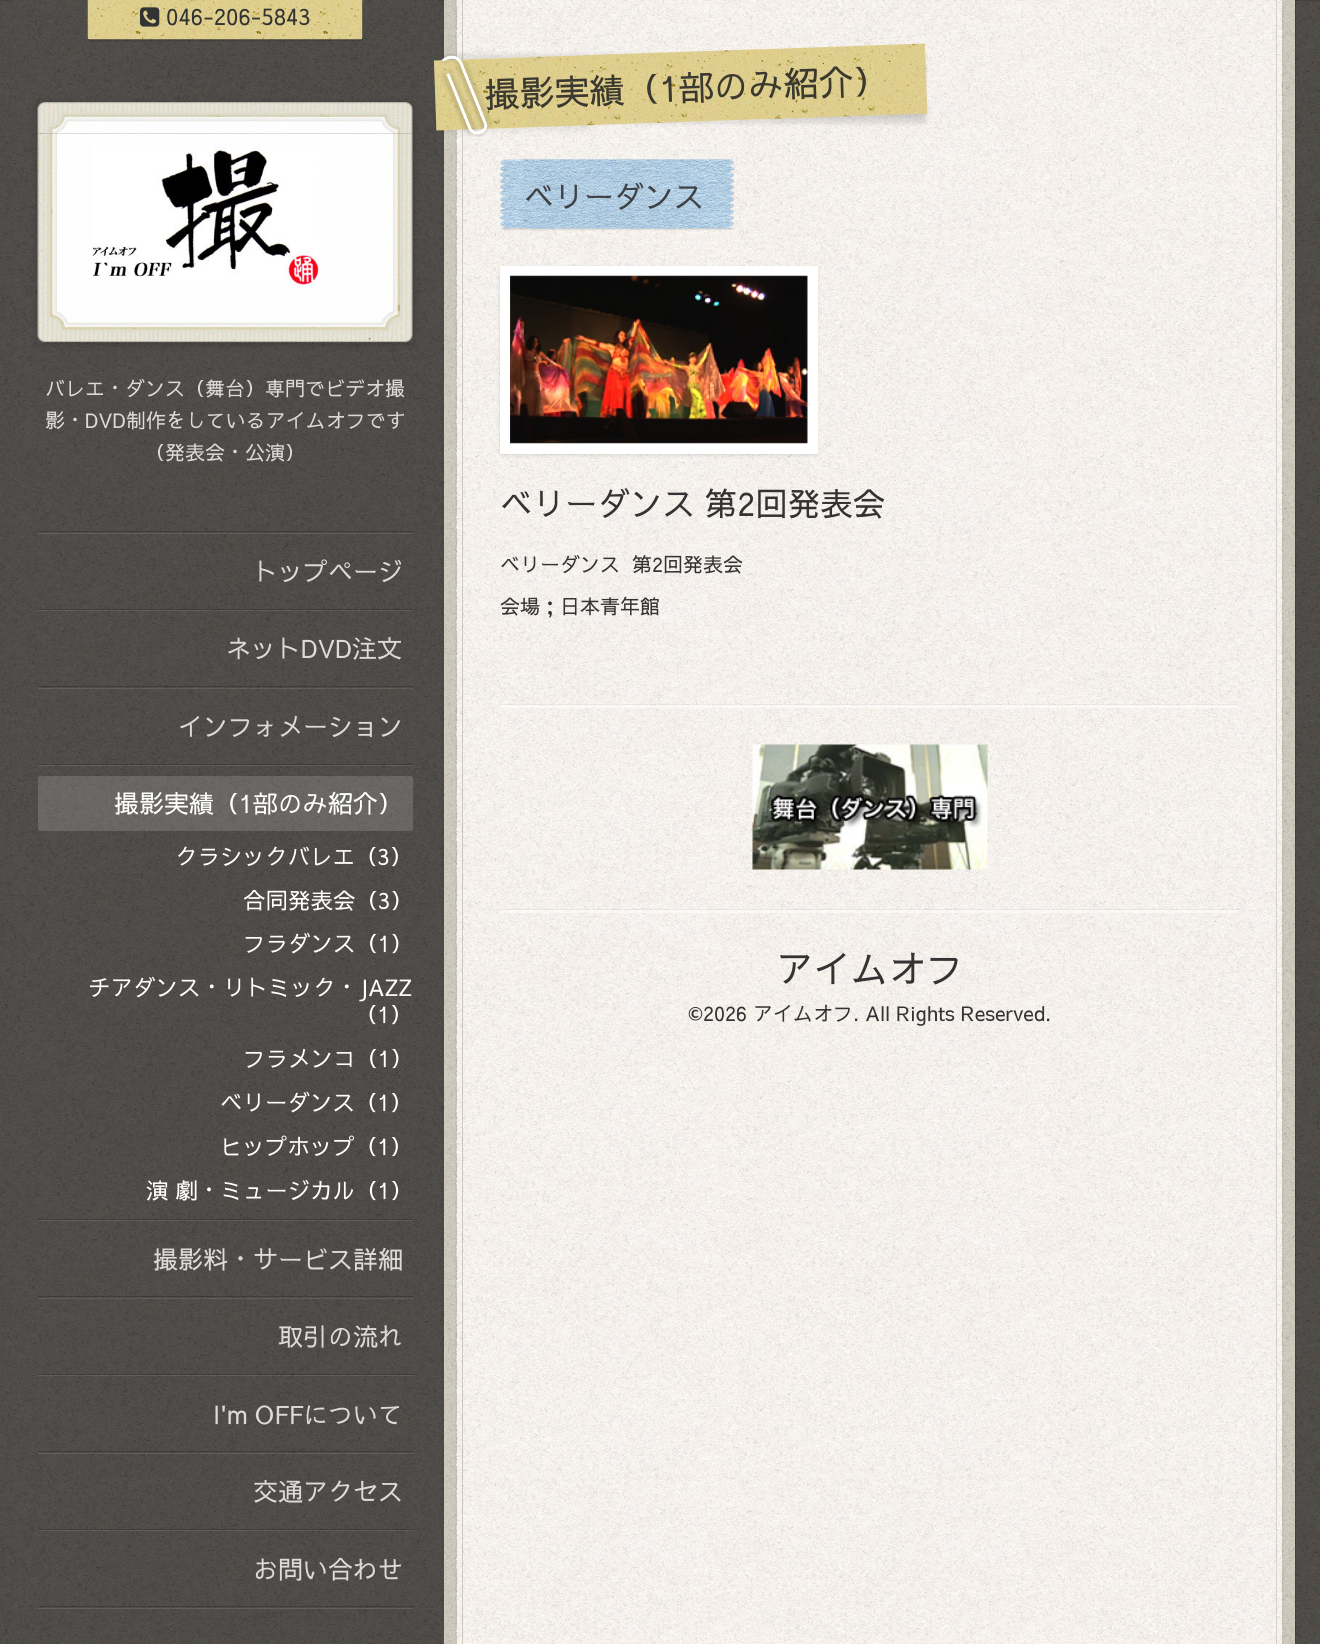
import math
import cairo


def round_path(ctx, x, y, w, h, r):
	ctx.new_sub_path()
	for i, (u, v) in enumerate([(x + w - r, y + h - r), (x + r, y + h - r), (x + r, y + r), (x + w - r, y + r)]):
		ctx.arc(u, v, r, i * math.pi / 2, (i + 1) * math.pi / 2)
	ctx.close_path()

def blur_box(ctx, x, y, w, h, r, blur, alpha):
	ctx.push_group_with_content(cairo.CONTENT_ALPHA)
	ctx.set_operator(cairo.OPERATOR_SOURCE)
	for i in range(15, -16, -2):
		e = blur * i / 6
		if min(w, h) + 2 * e > 0:
			ctx.set_source_rgba(0, 0, 0, alpha * math.erfc((i - 1) / 8.5) / 2)
			round_path(ctx, x - e, y - e, w + 2 * e, h + 2 * e, max(0, min(r + e + blur * .6, min(w, h) / 2 + e)))
			ctx.fill()
	ctx.mask(ctx.pop_group())

def paste(ctx, path, x, y, w, h):
	ctx.save()
	ctx.set_source_surface(cairo.ImageSurface.create_from_png(path), x, y)
	ctx.rectangle(x, y, w, h)
	ctx.fill()
	ctx.restore()

def draw(ctx):
	ctx.set_source_rgb(1, 1, 1)
	ctx.paint()
	paste(ctx, 'media/1.png', 0, 0, 1320, 1644)
	ctx.set_source_rgb(0.071, 0.071, 0.071)
	blur_box(ctx, 0, -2, 1320, 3, 0, 0.5, 0.2)
	ctx.set_source_rgb(0.318, 0.31, 0.298)
	ctx.rectangle(13, 0, 425, 1609)
	ctx.fill()
	paste(ctx, 'media/4.png', 12, 0, 426, 1609)
	ctx.set_source_rgb(0.071, 0.071, 0.071)
	blur_box(ctx, 88, 1, 275, 40, 2.5, 0.5, 0.2)
	paste(ctx, 'media/2.png', 87, 0, 276, 40)
	paste(ctx, 'media/3.png', 140, 7, 20, 20)
	ctx.select_font_face('Sawarabi Gothic')
	ctx.set_font_size(22.5)
	ctx.set_source_rgb(0.2, 0.2, 0.2)
	ctx.move_to(166, 25)
	ctx.show_text('046-206-5843')
	ctx.save()
	ctx.set_fill_rule(cairo.FILL_RULE_EVEN_ODD)
	ctx.new_path()
	ctx.move_to(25, 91)
	ctx.line_to(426, 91)
	ctx.line_to(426, 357)
	ctx.line_to(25, 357)
	ctx.close_path()
	ctx.move_to(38, 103)
	ctx.line_to(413, 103)
	ctx.line_to(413, 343)
	ctx.line_to(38, 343)
	ctx.close_path()
	ctx.clip()
	ctx.set_source_rgb(0.067, 0.067, 0.067)
	blur_box(ctx, 38, 104, 375, 240, 0, 4, 0.3)
	ctx.restore()
	paste(ctx, 'media/5.png', 37, 102, 376, 32)
	paste(ctx, 'media/6.png', 37, 133, 376, 209)
	paste(ctx, 'media/7.png', 92, 146, 227, 140)
	ctx.set_font_size(20)
	ctx.set_source_rgb(0.863, 0.859, 0.855)
	for x, y, s in [
		(45, 396, 'バレエ・ダンス（舞台）専門でビデオ撮'),
		(45, 428, '影・DVD制作をしているアイムオフです'),
		(145, 460, '（発表会・公演）'),
	]:
		ctx.move_to(x, y)
		ctx.show_text(s)
	ctx.set_source_rgb(0.318, 0.31, 0.298)
	ctx.rectangle(38, 531, 375, 1078)
	ctx.fill()
	paste(ctx, 'media/8.png', 37, 530, 376, 1079)
	ctx.set_source_rgba(0.071, 0.071, 0.071, 0.25)
	ctx.rectangle(38, 531, 375, 1)
	ctx.fill()
	ctx.set_source_rgba(1, 1, 1, 0.1)
	ctx.rectangle(38, 1608, 375, 1)
	ctx.fill()
	ctx.rectangle(38, 533, 375, 1)
	ctx.fill()
	ctx.set_source_rgba(0.071, 0.071, 0.071, 0.25)
	ctx.rectangle(38, 609, 375, 1)
	ctx.fill()
	ctx.set_font_size(25)
	ctx.set_source_rgb(0.863, 0.859, 0.855)
	ctx.move_to(253, 581)
	ctx.show_text('トップページ')
	ctx.set_source_rgba(1, 1, 1, 0.1)
	ctx.rectangle(38, 610, 375, 1)
	ctx.fill()
	ctx.set_source_rgba(0.071, 0.071, 0.071, 0.25)
	ctx.rectangle(38, 686, 375, 1)
	ctx.fill()
	ctx.set_source_rgb(0.863, 0.859, 0.855)
	ctx.move_to(226, 658)
	ctx.show_text('ネットDVD注文')
	ctx.set_source_rgba(1, 1, 1, 0.1)
	ctx.rectangle(38, 688, 375, 1)
	ctx.fill()
	ctx.set_source_rgba(0.071, 0.071, 0.071, 0.25)
	ctx.rectangle(38, 764, 375, 1)
	ctx.fill()
	ctx.set_source_rgb(0.863, 0.859, 0.855)
	ctx.move_to(178, 736)
	ctx.show_text('インフォメーション')
	ctx.set_source_rgba(1, 1, 1, 0.1)
	ctx.rectangle(38, 765, 375, 1)
	ctx.fill()
	ctx.set_source_rgba(0.071, 0.071, 0.071, 0.25)
	ctx.rectangle(38, 1219, 375, 1)
	ctx.fill()
	ctx.set_source_rgba(1, 1, 1, 0.15)
	round_path(ctx, 38, 776, 375, 55, 2.5)
	ctx.fill()
	ctx.set_source_rgb(1, 1, 1)
	ctx.move_to(114, 813)
	ctx.show_text('撮影実績（1部のみ紹介）')
	ctx.set_font_size(22.5)
	for x, y, s in [
		(175, 865, 'クラシックバレエ（3）'),
		(243, 909, '合同発表会（3）'),
		(243, 952, 'フラダンス（1）'),
		(88, 996, 'チアダンス・リトミック・JAZZ'),
		(355, 1023, '（1）'),
		(243, 1067, 'フラメンコ（1）'),
		(220, 1111, 'ベリーダンス（1）'),
		(220, 1155, 'ヒップホップ（1）'),
		(146, 1199, '演 劇・ミュージカル（1）'),
	]:
		ctx.move_to(x, y)
		ctx.show_text(s)
	ctx.set_source_rgba(1, 1, 1, 0.1)
	ctx.rectangle(38, 1220, 375, 1)
	ctx.fill()
	ctx.set_source_rgba(0.071, 0.071, 0.071, 0.25)
	ctx.rectangle(38, 1296, 375, 1)
	ctx.fill()
	ctx.set_font_size(25)
	ctx.set_source_rgb(0.863, 0.859, 0.855)
	ctx.move_to(153, 1269)
	ctx.show_text('撮影料・サービス詳細')
	ctx.set_source_rgba(1, 1, 1, 0.1)
	ctx.rectangle(38, 1298, 375, 1)
	ctx.fill()
	ctx.set_source_rgba(0.071, 0.071, 0.071, 0.25)
	ctx.rectangle(38, 1374, 375, 1)
	ctx.fill()
	ctx.set_source_rgb(0.863, 0.859, 0.855)
	ctx.move_to(278, 1346)
	ctx.show_text('取引の流れ')
	ctx.set_source_rgba(1, 1, 1, 0.1)
	ctx.rectangle(38, 1375, 375, 1)
	ctx.fill()
	ctx.set_source_rgba(0.071, 0.071, 0.071, 0.25)
	ctx.rectangle(38, 1451, 375, 1)
	ctx.fill()
	ctx.set_source_rgb(0.863, 0.859, 0.855)
	ctx.move_to(213, 1424)
	ctx.show_text('I\'m OFFについて')
	ctx.set_source_rgba(1, 1, 1, 0.1)
	ctx.rectangle(38, 1453, 375, 1)
	ctx.fill()
	ctx.set_source_rgba(0.071, 0.071, 0.071, 0.25)
	ctx.rectangle(38, 1529, 375, 1)
	ctx.fill()
	ctx.set_source_rgb(0.863, 0.859, 0.855)
	ctx.move_to(253, 1501)
	ctx.show_text('交通アクセス')
	ctx.set_source_rgba(1, 1, 1, 0.1)
	ctx.rectangle(38, 1530, 375, 1)
	ctx.fill()
	ctx.set_source_rgba(0.071, 0.071, 0.071, 0.25)
	ctx.rectangle(38, 1606, 375, 1)
	ctx.fill()
	ctx.set_source_rgb(0.863, 0.859, 0.855)
	ctx.move_to(253, 1579)
	ctx.show_text('お問い合わせ')
	paste(ctx, 'media/9.png', 462, 0, 815, 1644)
	paste(ctx, 'media/10.png', 442, 0, 21, 1644)
	ctx.set_source_rgb(0.212, 0.212, 0.212)
	blur_box(ctx, 435, 54, 491, 70, 0, 1.5, 0.1)
	ctx.set_source_rgb(0, 0, 0)
	blur_box(ctx, 441, 115, 148, 13, 0, 5, 0.1)
	blur_box(ctx, 775, 103, 148, 12, 0, 5, 0.2)
	paste(ctx, 'media/11.png', 433, 43, 495, 88)
	ctx.set_font_size(35)
	ctx.set_source_rgb(0.231, 0.22, 0.184)
	ctx.save()
	ctx.translate(485, 108)
	ctx.rotate(-2 * math.pi / 180)
	ctx.move_to(0, 0)
	ctx.show_text('撮影実績（1部のみ紹介）')
	ctx.restore()
	paste(ctx, 'media/12.png', 441, 55, 52, 82)
	paste(ctx, 'media/13.png', 1276, 0, 20, 1644)
	ctx.set_source_rgb(0, 0, 0)
	blur_box(ctx, 503, 165, 228, 64, 0, 1, 0.2)
	paste(ctx, 'media/14.png', 500, 159, 234, 70)
	paste(ctx, 'media/15.png', 523, 159, 211, 70)
	ctx.set_font_size(30)
	ctx.set_source_rgb(0.247, 0.259, 0.267)
	ctx.move_to(524, 208)
	ctx.show_text('ベリーダンス')
	ctx.set_source_rgb(0, 0, 0)
	blur_box(ctx, 501, 269, 315, 185, 0, 2.5, 0.2)
	ctx.set_source_rgb(1, 1, 1)
	ctx.rectangle(500, 266, 318, 188)
	ctx.fill()
	paste(ctx, 'media/16.png', 510, 275, 298, 169)
	ctx.set_font_size(32.5)
	ctx.set_source_rgb(0.2, 0.2, 0.2)
	ctx.move_to(500, 516)
	ctx.show_text('ベリーダンス 第2回発表会')
	ctx.set_font_size(20)
	ctx.move_to(500, 572)
	ctx.show_text('ベリーダンス  第2回発表会')
	ctx.move_to(500, 614)
	ctx.show_text('会場；日本青年館')
	ctx.set_source_rgba(0.071, 0.071, 0.071, 0.05)
	ctx.rectangle(500, 704, 739, 1)
	ctx.fill()
	ctx.set_source_rgba(1, 1, 1, 0.55)
	ctx.rectangle(500, 705, 739, 3)
	ctx.fill()
	paste(ctx, 'media/17.png', 752, 744, 236, 126)
	ctx.set_source_rgba(0.071, 0.071, 0.071, 0.05)
	ctx.rectangle(500, 909, 739, 1)
	ctx.fill()
	ctx.set_source_rgba(1, 1, 1, 0.55)
	ctx.rectangle(500, 910, 739, 3)
	ctx.fill()
	ctx.set_font_size(37.5)
	ctx.set_source_rgb(0.2, 0.2, 0.2)
	ctx.move_to(776, 983)
	ctx.show_text('アイムオフ')
	ctx.set_font_size(20)
	ctx.move_to(688, 1021)
	ctx.show_text('©2026 アイムオフ. All Rights Reserved.')


surface = cairo.ImageSurface(cairo.FORMAT_RGB24, 1320, 1644)
ctx = cairo.Context(surface)
options = cairo.FontOptions()
options.set_hint_metrics(cairo.HINT_METRICS_OFF)
options.set_hint_style(cairo.HINT_STYLE_NONE)
ctx.set_font_options(options)
ctx.set_miter_limit(4)
draw(ctx)
surface.write_to_png('image.png')
